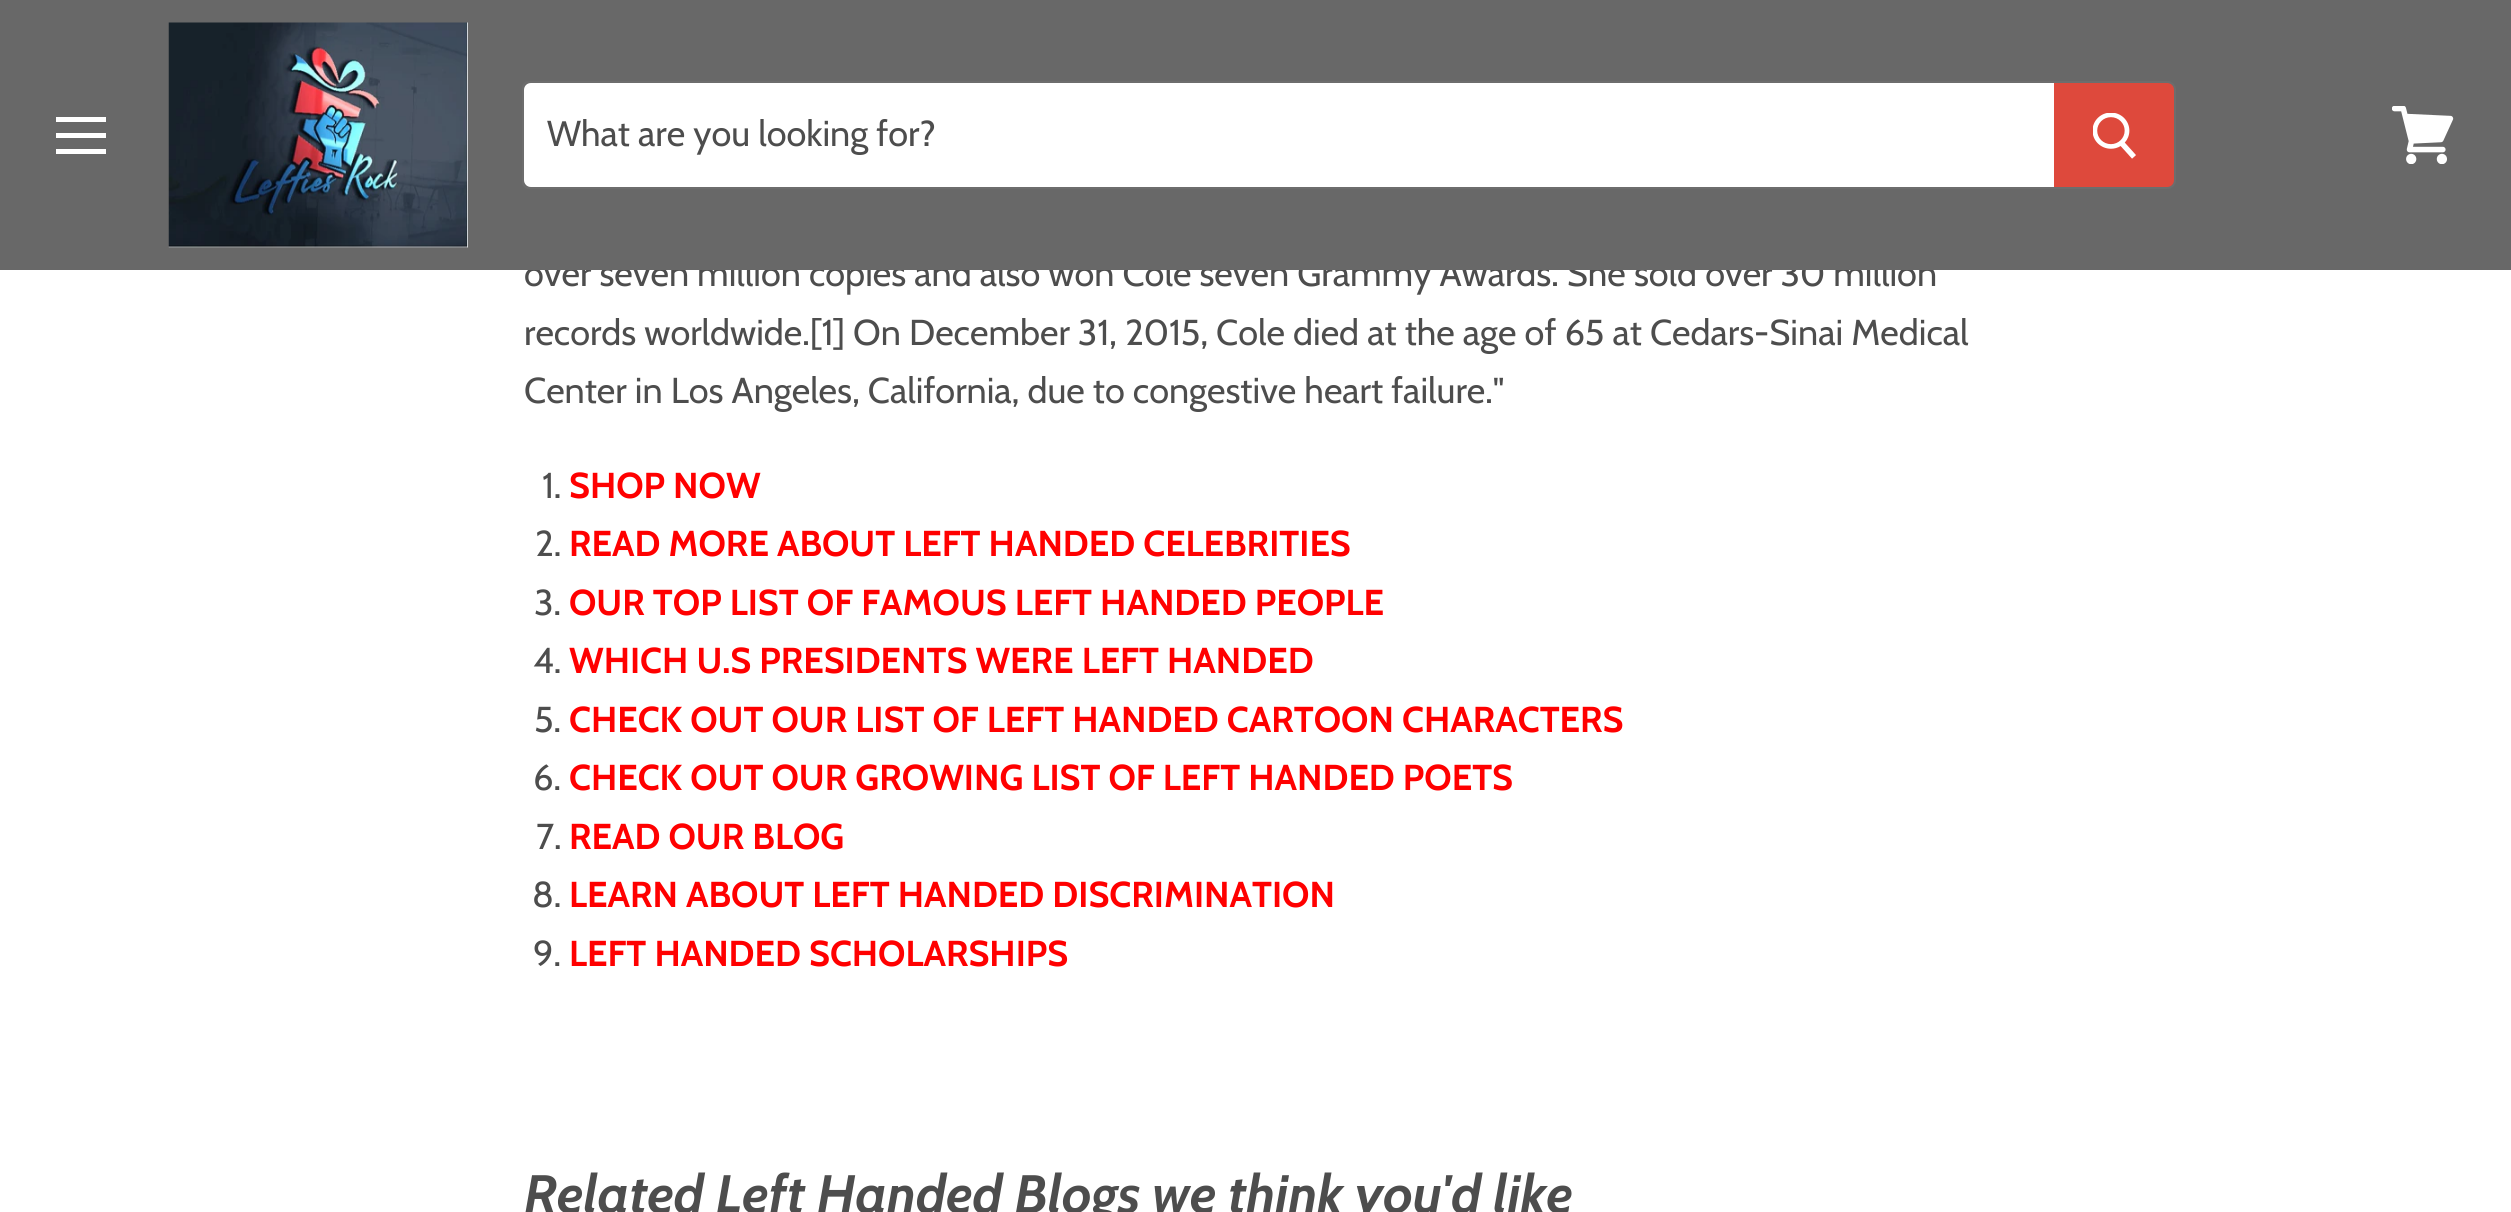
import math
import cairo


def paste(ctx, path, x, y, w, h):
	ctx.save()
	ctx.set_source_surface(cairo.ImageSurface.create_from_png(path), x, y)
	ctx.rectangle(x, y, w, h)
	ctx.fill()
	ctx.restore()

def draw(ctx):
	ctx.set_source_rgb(1, 1, 1)
	ctx.paint()
	ctx.select_font_face('Cabin')
	ctx.set_font_size(36)
	ctx.set_source_rgb(0.302, 0.302, 0.302)
	ctx.move_to(524, 286)
	ctx.show_text('over seven million copies and also won Cole seven Grammy Awards. She sold over 30 million')
	ctx.set_source_rgb(0.408, 0.408, 0.408)
	ctx.rectangle(0, 0, 2511, 270)
	ctx.fill()
	ctx.set_source_rgb(1, 1, 1)
	ctx.rectangle(56, 117, 50, 5)
	ctx.rectangle(56, 133, 50, 5)
	ctx.rectangle(56, 149, 50, 5)
	ctx.fill()
	paste(ctx, 'media/1.png', 168, 22, 300, 226)
	ctx.new_path()
	ctx.move_to(529, 82)
	ctx.line_to(2167, 82)
	ctx.curve_to(2171.5, 82, 2175, 85.5, 2175, 90)
	ctx.line_to(2175, 180)
	ctx.curve_to(2175, 184.5, 2171.5, 188, 2167, 188)
	ctx.line_to(529, 188)
	ctx.curve_to(525.5, 188, 523, 185.5, 523, 182)
	ctx.line_to(523, 88)
	ctx.curve_to(523, 84.5, 525.5, 82, 529, 82)
	ctx.close_path()
	ctx.set_source_rgb(0.427, 0.427, 0.427)
	ctx.stroke()
	ctx.set_source_rgb(1, 1, 1)
	ctx.new_path()
	ctx.move_to(531, 83)
	ctx.line_to(2054, 83)
	ctx.line_to(2054, 187)
	ctx.line_to(531, 187)
	ctx.curve_to(527, 187, 524, 184, 524, 180)
	ctx.line_to(524, 90)
	ctx.curve_to(524, 86, 527, 83, 531, 83)
	ctx.close_path()
	ctx.fill()
	ctx.set_source_rgb(0.302, 0.302, 0.302)
	ctx.move_to(547, 146)
	ctx.show_text('What are you looking for?')
	ctx.set_source_rgb(0.871, 0.286, 0.235)
	ctx.new_path()
	ctx.move_to(2055, 84)
	ctx.line_to(2167, 84)
	ctx.curve_to(2170.5, 84, 2173, 86.5, 2173, 90)
	ctx.line_to(2173, 180)
	ctx.curve_to(2173, 183.5, 2170.5, 186, 2167, 186)
	ctx.line_to(2055, 186)
	ctx.close_path()
	ctx.fill_preserve()
	ctx.stroke()
	paste(ctx, 'media/2.png', 2093, 113, 43, 46)
	paste(ctx, 'media/3.png', 2392, 106, 62, 58)
	ctx.set_source_rgb(0.302, 0.302, 0.302)
	for x, y, s in [
		(524, 345, 'records worldwide.[1] On December 31, 2015, Cole died at the age of 65 at Cedars-Sinai Medical'),
		(524, 403, 'Center in Los Angeles, California, due to congestive heart failure."'),
		(542, 498, '1.'),
	]:
		ctx.move_to(x, y)
		ctx.show_text(s)
	ctx.select_font_face('Cabin', cairo.FONT_SLANT_NORMAL, cairo.FONT_WEIGHT_BOLD)
	ctx.set_source_rgb(1, 0, 0)
	ctx.move_to(569, 498)
	ctx.show_text('SHOP NOW')
	ctx.select_font_face('Cabin')
	ctx.set_source_rgb(0.302, 0.302, 0.302)
	ctx.move_to(535, 556)
	ctx.show_text('2.')
	ctx.select_font_face('Cabin', cairo.FONT_SLANT_NORMAL, cairo.FONT_WEIGHT_BOLD)
	ctx.set_source_rgb(1, 0, 0)
	ctx.move_to(569, 556)
	ctx.show_text('READ MORE ABOUT LEFT HANDED CELEBRITIES')
	ctx.select_font_face('Cabin')
	ctx.set_source_rgb(0.302, 0.302, 0.302)
	ctx.move_to(534, 615)
	ctx.show_text('3.')
	ctx.select_font_face('Cabin', cairo.FONT_SLANT_NORMAL, cairo.FONT_WEIGHT_BOLD)
	ctx.set_source_rgb(1, 0, 0)
	ctx.move_to(569, 615)
	ctx.show_text('OUR TOP LIST OF FAMOUS LEFT HANDED PEOPLE')
	ctx.select_font_face('Cabin')
	ctx.set_source_rgb(0.302, 0.302, 0.302)
	ctx.move_to(533, 673)
	ctx.show_text('4.')
	ctx.select_font_face('Cabin', cairo.FONT_SLANT_NORMAL, cairo.FONT_WEIGHT_BOLD)
	ctx.set_source_rgb(1, 0, 0)
	ctx.move_to(569, 673)
	ctx.show_text('WHICH U.S PRESIDENTS WERE LEFT HANDED')
	ctx.select_font_face('Cabin')
	ctx.set_source_rgb(0.302, 0.302, 0.302)
	ctx.move_to(534, 732)
	ctx.show_text('5.')
	ctx.select_font_face('Cabin', cairo.FONT_SLANT_NORMAL, cairo.FONT_WEIGHT_BOLD)
	ctx.set_source_rgb(1, 0, 0)
	ctx.move_to(569, 732)
	ctx.show_text('CHECK OUT OUR LIST OF LEFT HANDED CARTOON CHARACTERS')
	ctx.select_font_face('Cabin')
	ctx.set_source_rgb(0.302, 0.302, 0.302)
	ctx.move_to(533, 790)
	ctx.show_text('6.')
	ctx.select_font_face('Cabin', cairo.FONT_SLANT_NORMAL, cairo.FONT_WEIGHT_BOLD)
	ctx.set_source_rgb(1, 0, 0)
	ctx.move_to(569, 790)
	ctx.show_text('CHECK OUT OUR GROWING LIST OF LEFT HANDED POETS')
	ctx.select_font_face('Cabin')
	ctx.set_source_rgb(0.302, 0.302, 0.302)
	ctx.move_to(536, 849)
	ctx.show_text('7.')
	ctx.select_font_face('Cabin', cairo.FONT_SLANT_NORMAL, cairo.FONT_WEIGHT_BOLD)
	ctx.set_source_rgb(1, 0, 0)
	ctx.move_to(569, 849)
	ctx.show_text('READ OUR BLOG')
	ctx.select_font_face('Cabin')
	ctx.set_source_rgb(0.302, 0.302, 0.302)
	ctx.move_to(532, 907)
	ctx.show_text('8.')
	ctx.select_font_face('Cabin', cairo.FONT_SLANT_NORMAL, cairo.FONT_WEIGHT_BOLD)
	ctx.set_source_rgb(1, 0, 0)
	ctx.move_to(569, 907)
	ctx.show_text('LEARN ABOUT LEFT HANDED DISCRIMINATION')
	ctx.select_font_face('Cabin')
	ctx.set_source_rgb(0.302, 0.302, 0.302)
	ctx.move_to(533, 966)
	ctx.show_text('9.')
	ctx.select_font_face('Cabin', cairo.FONT_SLANT_NORMAL, cairo.FONT_WEIGHT_BOLD)
	ctx.set_source_rgb(1, 0, 0)
	ctx.move_to(569, 966)
	ctx.show_text('LEFT HANDED SCHOLARSHIPS')
	ctx.select_font_face('Cabin', cairo.FONT_SLANT_ITALIC, cairo.FONT_WEIGHT_BOLD)
	ctx.set_font_size(54)
	ctx.set_source_rgb(0.302, 0.302, 0.302)
	ctx.move_to(524, 1213)
	ctx.show_text('Related Left Handed Blogs we think you\'d like')


surface = cairo.ImageSurface(cairo.FORMAT_RGB24, 2511, 1212)
ctx = cairo.Context(surface)
options = cairo.FontOptions()
options.set_hint_metrics(cairo.HINT_METRICS_OFF)
options.set_hint_style(cairo.HINT_STYLE_NONE)
ctx.set_font_options(options)
ctx.set_miter_limit(4)
draw(ctx)
surface.write_to_png('image.png')
